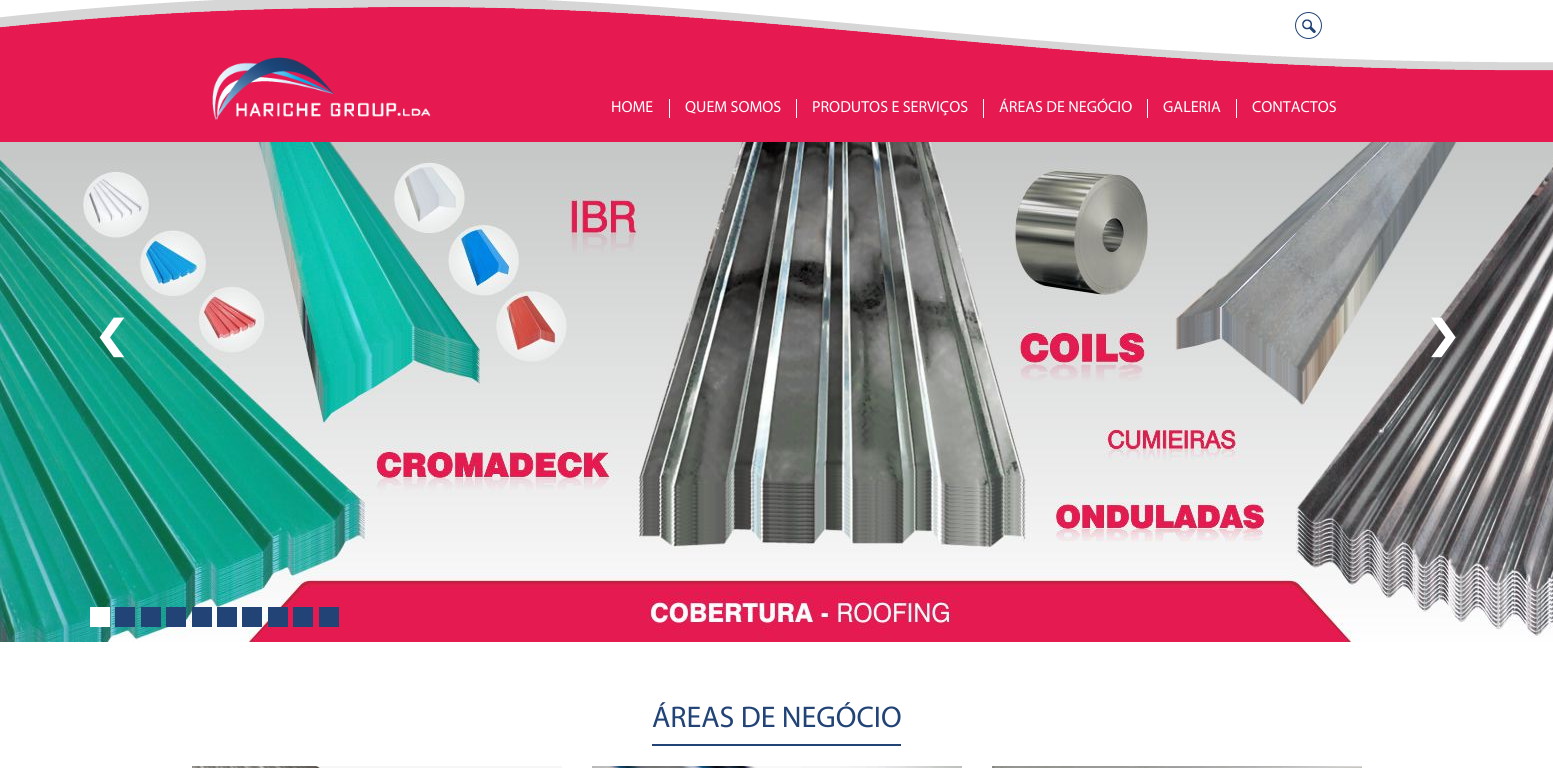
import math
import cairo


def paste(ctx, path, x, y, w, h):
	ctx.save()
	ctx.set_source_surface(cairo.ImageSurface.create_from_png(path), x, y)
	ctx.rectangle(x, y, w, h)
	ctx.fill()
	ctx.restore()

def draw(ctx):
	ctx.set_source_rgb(1, 1, 1)
	ctx.paint()
	paste(ctx, 'media/1.png', 0, 0, 1553, 142)
	paste(ctx, 'media/2.png', 1302, 19, 14, 14)
	ctx.arc(1308.5, 25.5, 13, 0, 2 * math.pi)
	ctx.set_source_rgb(0.129, 0.263, 0.463)
	ctx.set_line_width(1)
	ctx.stroke()
	paste(ctx, 'media/3.png', 212, 57, 219, 63)
	ctx.set_source_rgb(1, 1, 1)
	ctx.rectangle(669, 99, 1, 19)
	ctx.fill()
	ctx.select_font_face('Myriad')
	ctx.set_font_size(16)
	ctx.move_to(611, 112)
	ctx.show_text('HOME')
	ctx.rectangle(796, 99, 1, 19)
	ctx.fill()
	ctx.move_to(685, 112)
	ctx.show_text('QUEM SOMOS')
	ctx.rectangle(983, 99, 1, 19)
	ctx.fill()
	ctx.move_to(812, 112)
	ctx.show_text('PRODUTOS E SERVIÇOS')
	ctx.rectangle(1147, 99, 1, 19)
	ctx.fill()
	ctx.move_to(999, 112)
	ctx.show_text('ÁREAS DE NEGÓCIO')
	ctx.rectangle(1236, 99, 1, 19)
	ctx.fill()
	ctx.move_to(1163, 112)
	ctx.show_text('GALERIA')
	ctx.move_to(1252, 112)
	ctx.show_text('CONTACTOS')
	paste(ctx, 'media/4.png', 0, 142, 1553, 500)
	ctx.select_font_face('Myriad', cairo.FONT_SLANT_NORMAL, cairo.FONT_WEIGHT_BOLD)
	ctx.set_font_size(100)
	ctx.move_to(97, 364)
	ctx.show_text('‹')
	ctx.move_to(1430, 364)
	ctx.show_text('›')
	ctx.rectangle(90, 607, 20, 20)
	ctx.fill()
	ctx.set_source_rgb(0.129, 0.263, 0.463)
	ctx.rectangle(115, 607, 20, 20)
	ctx.rectangle(141, 607, 20, 20)
	ctx.rectangle(166, 607, 20, 20)
	ctx.rectangle(192, 607, 20, 20)
	ctx.rectangle(217, 607, 20, 20)
	ctx.rectangle(242, 607, 20, 20)
	ctx.rectangle(268, 607, 20, 20)
	ctx.rectangle(293, 607, 20, 20)
	ctx.rectangle(319, 607, 20, 20)
	ctx.rectangle(652, 744, 249, 2)
	ctx.fill()
	ctx.select_font_face('Myriad')
	ctx.set_font_size(30)
	ctx.move_to(652, 727)
	ctx.show_text('ÁREAS DE NEGÓCIO')
	paste(ctx, 'media/5.png', 192, 766, 370, 2)
	paste(ctx, 'media/6.png', 592, 766, 370, 2)
	paste(ctx, 'media/7.png', 992, 766, 370, 2)


surface = cairo.ImageSurface(cairo.FORMAT_RGB24, 1553, 768)
ctx = cairo.Context(surface)
options = cairo.FontOptions()
options.set_hint_metrics(cairo.HINT_METRICS_OFF)
options.set_hint_style(cairo.HINT_STYLE_NONE)
ctx.set_font_options(options)
ctx.set_miter_limit(4)
draw(ctx)
surface.write_to_png('image.png')
